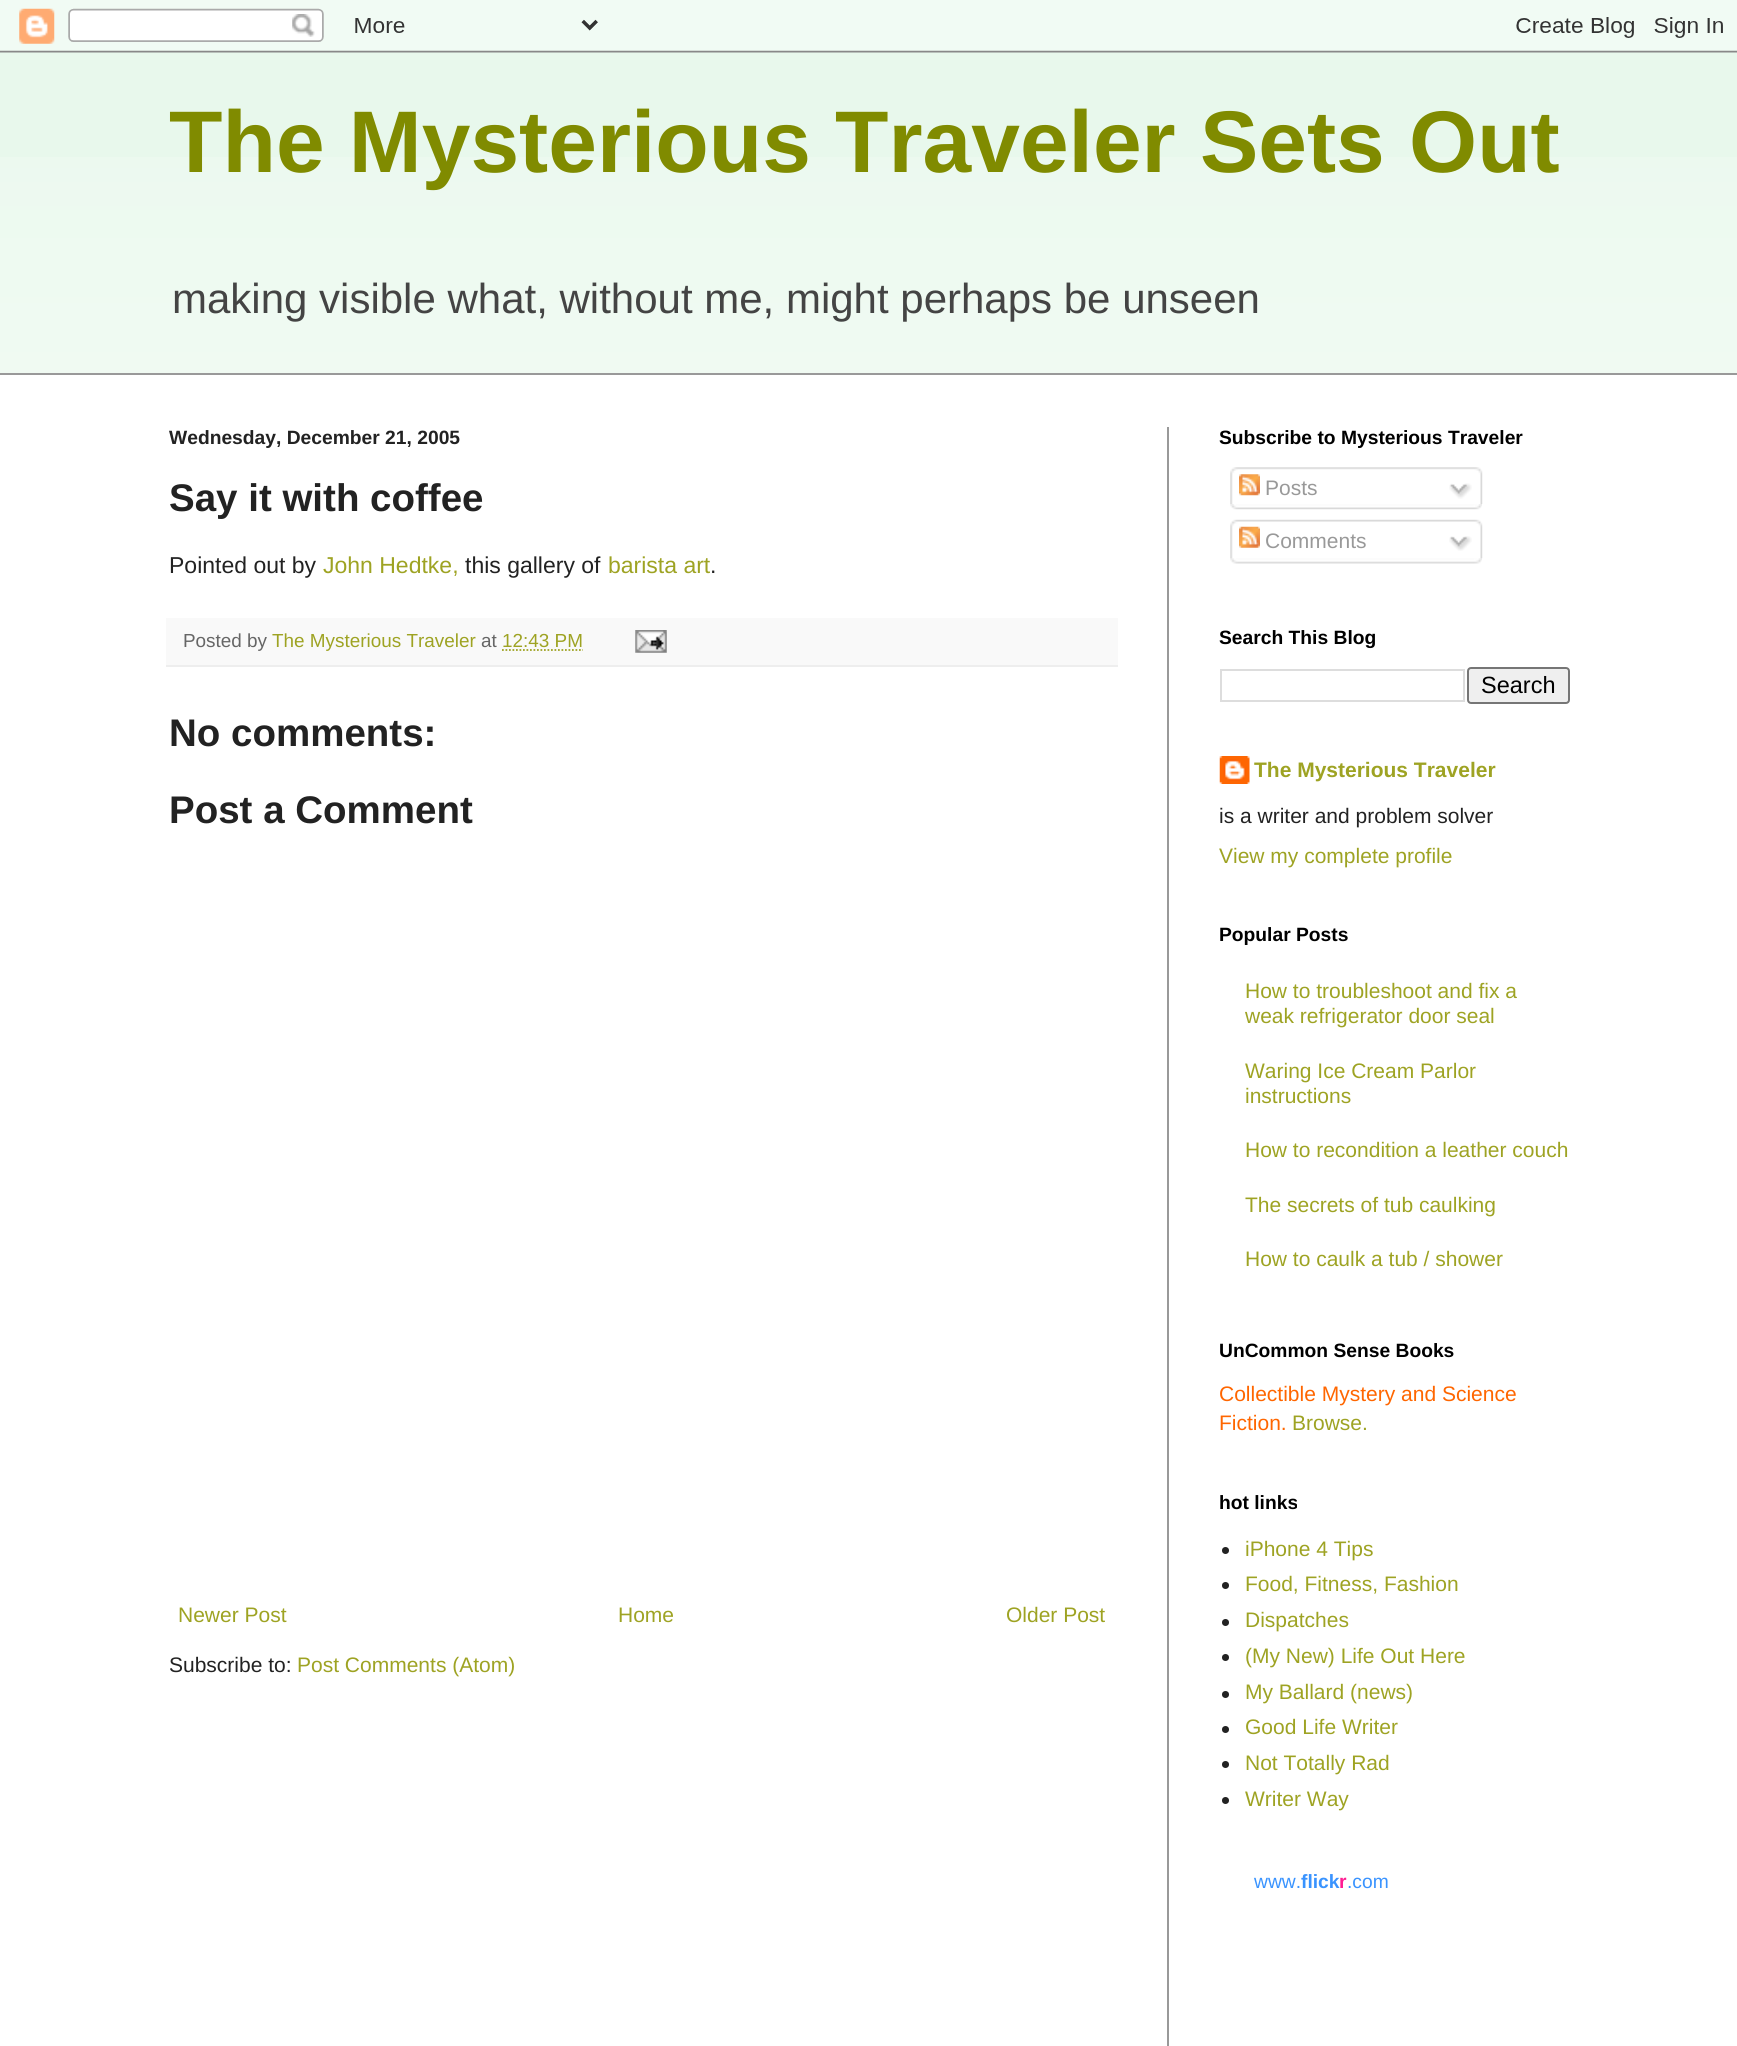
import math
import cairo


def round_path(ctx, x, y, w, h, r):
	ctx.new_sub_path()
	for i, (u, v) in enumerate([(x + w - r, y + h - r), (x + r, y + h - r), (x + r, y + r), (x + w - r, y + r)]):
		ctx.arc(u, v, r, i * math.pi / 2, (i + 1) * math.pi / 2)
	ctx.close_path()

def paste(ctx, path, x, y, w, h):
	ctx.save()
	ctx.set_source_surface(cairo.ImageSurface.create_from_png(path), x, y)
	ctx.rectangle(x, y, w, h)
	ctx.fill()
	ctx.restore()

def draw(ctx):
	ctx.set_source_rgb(0.91, 0.969, 0.925)
	ctx.paint()
	paste(ctx, 'media/1.png', 0, 0, 1737, 53)
	paste(ctx, 'media/12.png', 0, 157, 1737, 216)
	ctx.select_font_face('Liberation Sans', cairo.FONT_SLANT_NORMAL, cairo.FONT_WEIGHT_BOLD)
	ctx.set_font_size(87.5)
	ctx.set_source_rgb(0.502, 0.545, 0)
	ctx.move_to(169, 172)
	ctx.show_text('The Mysterious Traveler Sets Out')
	ctx.select_font_face('Liberation Sans')
	ctx.set_font_size(42)
	ctx.set_source_rgb(0.267, 0.267, 0.267)
	ctx.move_to(172, 313)
	ctx.show_text('making visible what, without me, might perhaps be unseen')
	ctx.set_source_rgb(1, 1, 1)
	ctx.rectangle(0, 375, 1737, 1671)
	ctx.fill()
	ctx.set_source_rgb(0.6, 0.6, 0.6)
	ctx.rectangle(0, 373, 1737, 2)
	ctx.rectangle(1167, 427, 2, 1619)
	ctx.fill()
	ctx.select_font_face('Liberation Sans', cairo.FONT_SLANT_NORMAL, cairo.FONT_WEIGHT_BOLD)
	ctx.set_font_size(19.25)
	ctx.set_source_rgb(0.133, 0.133, 0.133)
	ctx.move_to(169, 444)
	ctx.show_text('Wednesday, December 21, 2005')
	ctx.set_font_size(38.5)
	ctx.move_to(169, 511)
	ctx.show_text('Say it with coffee')
	ctx.select_font_face('Liberation Sans')
	ctx.set_font_size(23)
	ctx.move_to(169, 573)
	ctx.show_text('Pointed out by')
	ctx.set_source_rgb(0.62, 0.639, 0.137)
	ctx.move_to(323, 573)
	ctx.show_text('John Hedtke,')
	ctx.set_source_rgb(0.133, 0.133, 0.133)
	ctx.move_to(465, 573)
	ctx.show_text('this gallery of')
	ctx.set_source_rgb(0.62, 0.639, 0.137)
	ctx.move_to(608, 573)
	ctx.show_text('barista art')
	ctx.set_source_rgb(0.133, 0.133, 0.133)
	ctx.move_to(710, 573)
	ctx.show_text('.')
	ctx.set_source_rgb(0.976, 0.976, 0.976)
	ctx.rectangle(166, 618, 952, 47)
	ctx.fill()
	ctx.set_source_rgb(0.933, 0.933, 0.933)
	ctx.rectangle(166, 665, 952, 2)
	ctx.fill()
	ctx.set_font_size(18.9)
	ctx.set_source_rgb(0.4, 0.4, 0.4)
	ctx.move_to(183, 647)
	ctx.show_text('Posted by')
	ctx.set_source_rgb(0.62, 0.639, 0.137)
	ctx.move_to(272, 647)
	ctx.show_text('The Mysterious Traveler')
	ctx.set_source_rgb(0.4, 0.4, 0.4)
	ctx.move_to(481, 647)
	ctx.show_text('at')
	ctx.set_source_rgb(0.62, 0.639, 0.137)
	ctx.move_to(502, 647)
	ctx.show_text('12:43 PM')
	ctx.new_path()
	ctx.move_to(502, 650)
	ctx.line_to(583, 650)
	ctx.set_line_width(1.8)
	ctx.set_dash([1.75, 1.75])
	ctx.stroke()
	paste(ctx, 'media/2.png', 635, 630, 32, 23)
	ctx.select_font_face('Liberation Sans', cairo.FONT_SLANT_NORMAL, cairo.FONT_WEIGHT_BOLD)
	ctx.set_font_size(38.5)
	ctx.set_source_rgb(0.133, 0.133, 0.133)
	ctx.move_to(169, 746)
	ctx.show_text('No comments:')
	ctx.move_to(169, 823)
	ctx.show_text('Post a Comment')
	ctx.select_font_face('Liberation Sans')
	ctx.set_font_size(21)
	ctx.set_source_rgb(0.62, 0.639, 0.137)
	for x, y, s in [
		(178, 1622, 'Newer Post'),
		(618, 1622, 'Home'),
		(1006, 1622, 'Older Post'),
	]:
		ctx.move_to(x, y)
		ctx.show_text(s)
	ctx.set_source_rgb(0.133, 0.133, 0.133)
	ctx.move_to(169, 1672)
	ctx.show_text('Subscribe to:')
	ctx.set_source_rgb(0.62, 0.639, 0.137)
	ctx.move_to(297, 1672)
	ctx.show_text('Post Comments (Atom)')
	ctx.select_font_face('Liberation Sans', cairo.FONT_SLANT_NORMAL, cairo.FONT_WEIGHT_BOLD)
	ctx.set_font_size(19.25)
	ctx.set_source_rgb(0, 0, 0)
	ctx.move_to(1219, 444)
	ctx.show_text('Subscribe to Mysterious Traveler')
	paste(ctx, 'media/3.png', 1230, 467, 253, 37)
	paste(ctx, 'media/4.png', 1239, 474, 21, 22)
	ctx.select_font_face('Liberation Sans')
	ctx.set_font_size(21)
	ctx.set_source_rgb(0.6, 0.6, 0.6)
	ctx.move_to(1265, 495)
	ctx.show_text('Posts')
	paste(ctx, 'media/5.png', 1449, 483, 23, 16)
	paste(ctx, 'media/6.png', 1230, 504, 252, 6)
	paste(ctx, 'media/7.png', 1230, 519, 253, 40)
	paste(ctx, 'media/8.png', 1239, 526, 21, 22)
	ctx.move_to(1265, 548)
	ctx.show_text('Comments')
	paste(ctx, 'media/9.png', 1449, 536, 23, 15)
	paste(ctx, 'media/10.png', 1230, 558, 252, 6)
	ctx.select_font_face('Liberation Sans', cairo.FONT_SLANT_NORMAL, cairo.FONT_WEIGHT_BOLD)
	ctx.set_font_size(19.25)
	ctx.set_source_rgb(0, 0, 0)
	ctx.move_to(1219, 644)
	ctx.show_text('Search This Blog')
	ctx.rectangle(1221, 670, 243, 31)
	ctx.set_source_rgb(0.867, 0.867, 0.867)
	ctx.set_line_width(2)
	ctx.set_dash([])
	ctx.stroke()
	ctx.set_source_rgb(0.937, 0.937, 0.937)
	round_path(ctx, 1468, 668, 101, 35, 3)
	ctx.fill_preserve()
	ctx.set_source_rgb(0.463, 0.463, 0.463)
	ctx.stroke()
	ctx.select_font_face('Liberation Sans')
	ctx.set_font_size(23.5)
	ctx.set_source_rgb(0, 0, 0)
	ctx.move_to(1481, 693)
	ctx.show_text('Search')
	paste(ctx, 'media/11.png', 1219, 756, 31, 28)
	ctx.select_font_face('Liberation Sans', cairo.FONT_SLANT_NORMAL, cairo.FONT_WEIGHT_BOLD)
	ctx.set_font_size(21)
	ctx.set_source_rgb(0.62, 0.639, 0.137)
	ctx.move_to(1254, 777)
	ctx.show_text('The Mysterious Traveler')
	ctx.select_font_face('Liberation Sans')
	ctx.set_source_rgb(0.133, 0.133, 0.133)
	ctx.move_to(1219, 823)
	ctx.show_text('is a writer and problem solver')
	ctx.set_source_rgb(0.62, 0.639, 0.137)
	ctx.move_to(1219, 863)
	ctx.show_text('View my complete profile')
	ctx.select_font_face('Liberation Sans', cairo.FONT_SLANT_NORMAL, cairo.FONT_WEIGHT_BOLD)
	ctx.set_font_size(19.25)
	ctx.set_source_rgb(0, 0, 0)
	ctx.move_to(1219, 941)
	ctx.show_text('Popular Posts')
	ctx.select_font_face('Liberation Sans')
	ctx.set_font_size(21)
	ctx.set_source_rgb(0.62, 0.639, 0.137)
	for x, y, s in [
		(1245, 998, 'How to troubleshoot and fix a'),
		(1245, 1023, 'weak refrigerator door seal'),
		(1245, 1078, 'Waring Ice Cream Parlor'),
		(1245, 1103, 'instructions'),
		(1245, 1157, 'How to recondition a leather couch'),
		(1245, 1212, 'The secrets of tub caulking'),
		(1245, 1266, 'How to caulk a tub / shower'),
	]:
		ctx.move_to(x, y)
		ctx.show_text(s)
	ctx.select_font_face('Liberation Sans', cairo.FONT_SLANT_NORMAL, cairo.FONT_WEIGHT_BOLD)
	ctx.set_font_size(19.25)
	ctx.set_source_rgb(0, 0, 0)
	ctx.move_to(1219, 1357)
	ctx.show_text('UnCommon Sense Books')
	ctx.select_font_face('Liberation Sans')
	ctx.set_font_size(21)
	ctx.set_source_rgb(1, 0.4, 0)
	ctx.move_to(1219, 1401)
	ctx.show_text('Collectible Mystery and Science')
	ctx.move_to(1219, 1430)
	ctx.show_text('Fiction.')
	ctx.set_source_rgb(0.62, 0.639, 0.137)
	ctx.move_to(1292, 1430)
	ctx.show_text('Browse.')
	ctx.select_font_face('Liberation Sans', cairo.FONT_SLANT_NORMAL, cairo.FONT_WEIGHT_BOLD)
	ctx.set_font_size(19.25)
	ctx.set_source_rgb(0, 0, 0)
	ctx.move_to(1219, 1509)
	ctx.show_text('hot links')
	ctx.set_source_rgb(0.133, 0.133, 0.133)
	ctx.new_path()
	ctx.arc(1225.5, 1550.5, 3.5, 0, 2 * math.pi)
	ctx.fill()
	ctx.select_font_face('Liberation Sans')
	ctx.set_font_size(21)
	ctx.set_source_rgb(0.62, 0.639, 0.137)
	ctx.move_to(1245, 1556)
	ctx.show_text('iPhone 4 Tips')
	ctx.set_source_rgb(0.133, 0.133, 0.133)
	ctx.new_path()
	ctx.arc(1225.5, 1585.5, 3.5, 0, 2 * math.pi)
	ctx.fill()
	ctx.set_source_rgb(0.62, 0.639, 0.137)
	ctx.move_to(1245, 1591)
	ctx.show_text('Food, Fitness, Fashion')
	ctx.set_source_rgb(0.133, 0.133, 0.133)
	ctx.new_path()
	ctx.arc(1225.5, 1622.5, 3.5, 0, 2 * math.pi)
	ctx.fill()
	ctx.set_source_rgb(0.62, 0.639, 0.137)
	ctx.move_to(1245, 1627)
	ctx.show_text('Dispatches')
	ctx.set_source_rgb(0.133, 0.133, 0.133)
	ctx.new_path()
	ctx.arc(1225.5, 1657.5, 3.5, 0, 2 * math.pi)
	ctx.fill()
	ctx.set_source_rgb(0.62, 0.639, 0.137)
	ctx.move_to(1245, 1663)
	ctx.show_text('(My New) Life Out Here')
	ctx.set_source_rgb(0.133, 0.133, 0.133)
	ctx.new_path()
	ctx.arc(1225.5, 1694.5, 3.5, 0, 2 * math.pi)
	ctx.fill()
	ctx.set_source_rgb(0.62, 0.639, 0.137)
	ctx.move_to(1245, 1699)
	ctx.show_text('My Ballard (news)')
	ctx.set_source_rgb(0.133, 0.133, 0.133)
	ctx.new_path()
	ctx.arc(1225.5, 1729.5, 3.5, 0, 2 * math.pi)
	ctx.fill()
	ctx.set_source_rgb(0.62, 0.639, 0.137)
	ctx.move_to(1245, 1734)
	ctx.show_text('Good Life Writer')
	ctx.set_source_rgb(0.133, 0.133, 0.133)
	ctx.new_path()
	ctx.arc(1225.5, 1764.5, 3.5, 0, 2 * math.pi)
	ctx.fill()
	ctx.set_source_rgb(0.62, 0.639, 0.137)
	ctx.move_to(1245, 1770)
	ctx.show_text('Not Totally Rad')
	ctx.set_source_rgb(0.133, 0.133, 0.133)
	ctx.new_path()
	ctx.arc(1225.5, 1800.5, 3.5, 0, 2 * math.pi)
	ctx.fill()
	ctx.set_source_rgb(0.62, 0.639, 0.137)
	ctx.move_to(1245, 1806)
	ctx.show_text('Writer Way')
	ctx.set_font_size(19.25)
	ctx.set_source_rgb(0.224, 0.576, 1)
	ctx.move_to(1254, 1888)
	ctx.show_text('www.')
	ctx.select_font_face('Liberation Sans', cairo.FONT_SLANT_NORMAL, cairo.FONT_WEIGHT_BOLD)
	ctx.move_to(1301, 1888)
	ctx.show_text('flick')
	ctx.set_source_rgb(1, 0.11, 0.573)
	ctx.move_to(1339, 1888)
	ctx.show_text('r')
	ctx.select_font_face('Liberation Sans')
	ctx.set_source_rgb(0.224, 0.576, 1)
	ctx.move_to(1347, 1888)
	ctx.show_text('.com')


surface = cairo.ImageSurface(cairo.FORMAT_RGB24, 1737, 2046)
ctx = cairo.Context(surface)
options = cairo.FontOptions()
options.set_hint_metrics(cairo.HINT_METRICS_OFF)
options.set_hint_style(cairo.HINT_STYLE_NONE)
ctx.set_font_options(options)
ctx.set_miter_limit(4)
draw(ctx)
surface.write_to_png('image.png')
